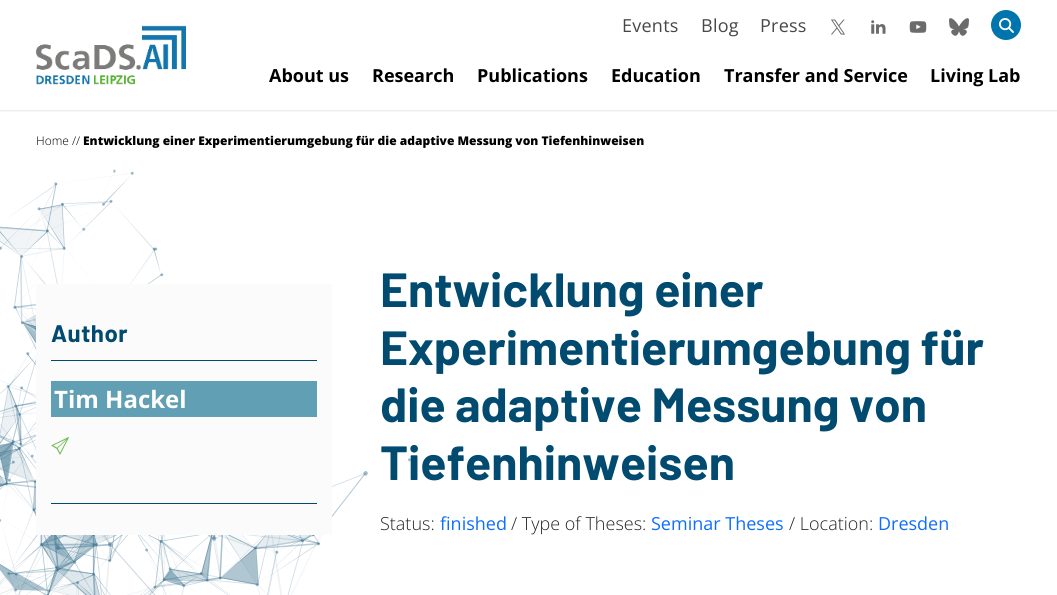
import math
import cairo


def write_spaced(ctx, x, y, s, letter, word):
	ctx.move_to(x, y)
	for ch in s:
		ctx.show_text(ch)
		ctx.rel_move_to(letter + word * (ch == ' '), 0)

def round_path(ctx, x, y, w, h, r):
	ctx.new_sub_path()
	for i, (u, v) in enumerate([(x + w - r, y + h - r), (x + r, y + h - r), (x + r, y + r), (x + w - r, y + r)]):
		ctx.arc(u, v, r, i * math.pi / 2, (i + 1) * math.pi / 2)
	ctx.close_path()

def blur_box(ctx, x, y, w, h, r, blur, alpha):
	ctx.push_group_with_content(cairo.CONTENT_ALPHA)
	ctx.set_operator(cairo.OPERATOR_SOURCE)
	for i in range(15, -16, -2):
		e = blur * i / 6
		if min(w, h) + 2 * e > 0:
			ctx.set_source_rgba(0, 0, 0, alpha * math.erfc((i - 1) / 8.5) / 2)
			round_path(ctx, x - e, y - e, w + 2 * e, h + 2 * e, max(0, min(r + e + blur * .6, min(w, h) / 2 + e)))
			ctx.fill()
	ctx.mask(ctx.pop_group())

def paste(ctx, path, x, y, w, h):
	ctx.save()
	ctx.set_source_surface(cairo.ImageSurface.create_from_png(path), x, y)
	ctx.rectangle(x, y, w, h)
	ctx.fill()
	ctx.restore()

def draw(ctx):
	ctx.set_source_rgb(1, 1, 1)
	ctx.paint()
	paste(ctx, 'media/1.png', 0, 169, 411, 426)
	ctx.save()
	ctx.rectangle(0, 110, 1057, 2)
	ctx.clip()
	ctx.set_source_rgb(0, 0, 0)
	blur_box(ctx, 0, 1, 1057, 110, 0, 1, 0.1)
	ctx.restore()
	paste(ctx, 'media/2.png', 36, 25, 150, 60)
	ctx.select_font_face('Open Sans')
	ctx.set_font_size(18)
	ctx.set_source_rgb(0.278, 0.278, 0.278)
	for x, y, s in [
		(622, 32, 'Events'),
		(701, 32, 'Blog'),
		(760, 32, 'Press'),
	]:
		write_spaced(ctx, x, y, s, 0.25, 0)
	paste(ctx, 'media/3.png', 831, 19, 14, 16)
	paste(ctx, 'media/4.png', 871, 20, 15, 14)
	paste(ctx, 'media/5.png', 909, 21, 18, 12)
	paste(ctx, 'media/6.png', 949, 18, 20, 18)
	ctx.set_source_rgb(0, 0.455, 0.675)
	ctx.arc(1006, 25, 15, 0, 2 * math.pi)
	ctx.fill()
	paste(ctx, 'media/7.png', 999, 18, 15, 15)
	ctx.select_font_face('Open Sans', cairo.FONT_SLANT_NORMAL, cairo.FONT_WEIGHT_BOLD)
	ctx.set_source_rgb(0, 0, 0)
	for x, y, s in [
		(269, 82, 'About us'),
		(372, 82, 'Research'),
		(477, 82, 'Publications'),
		(611, 82, 'Education'),
		(724, 82, 'Transfer and Service'),
		(930, 82, 'Living Lab'),
	]:
		ctx.move_to(x, y)
		ctx.show_text(s)
	ctx.select_font_face('Open Sans Light')
	ctx.set_font_size(12)
	ctx.move_to(36, 145)
	ctx.show_text('Home //')
	ctx.select_font_face('Open Sans ExtraBold')
	ctx.move_to(83, 145)
	ctx.show_text('Entwicklung einer Experimentierumgebung für die adaptive Messung von Tiefenhinweisen')
	ctx.set_source_rgb(0.984, 0.984, 0.984)
	ctx.rectangle(36, 284, 296, 251)
	ctx.fill()
	ctx.set_source_rgb(0, 0.294, 0.435)
	ctx.rectangle(51, 360, 266, 1)
	ctx.fill()
	ctx.select_font_face('Barlow', cairo.FONT_SLANT_NORMAL, cairo.FONT_WEIGHT_BOLD)
	ctx.set_font_size(24)
	write_spaced(ctx, 51, 342, 'Author', 0.5, 0)
	ctx.set_source_rgb(0.376, 0.624, 0.706)
	ctx.rectangle(51, 381, 266, 36)
	ctx.fill()
	ctx.select_font_face('Open Sans', cairo.FONT_SLANT_NORMAL, cairo.FONT_WEIGHT_BOLD)
	ctx.set_source_rgb(1, 1, 1)
	ctx.move_to(54, 408)
	ctx.show_text('Tim Hackel')
	paste(ctx, 'media/8.png', 51, 437, 18, 18)
	ctx.set_source_rgb(0, 0.294, 0.435)
	ctx.rectangle(51, 503, 266, 1)
	ctx.fill()
	ctx.select_font_face('Barlow', cairo.FONT_SLANT_NORMAL, cairo.FONT_WEIGHT_BOLD)
	ctx.set_font_size(48)
	for x, y, s in [
		(380, 307, 'Entwicklung einer'),
		(380, 365, 'Experimentierumgebung für'),
		(380, 422, 'die adaptive Messung von'),
		(380, 480, 'Tiefenhinweisen'),
	]:
		ctx.move_to(x, y)
		ctx.show_text(s)
	ctx.select_font_face('Open Sans Light')
	ctx.set_font_size(18)
	ctx.set_source_rgb(0.129, 0.145, 0.161)
	ctx.move_to(380, 530)
	ctx.show_text('Status:')
	ctx.select_font_face('Open Sans')
	ctx.set_source_rgb(0.051, 0.431, 0.992)
	ctx.move_to(440, 530)
	ctx.show_text('finished')
	ctx.select_font_face('Open Sans Light')
	ctx.set_source_rgb(0.129, 0.145, 0.161)
	ctx.move_to(511, 530)
	ctx.show_text('/ Type of Theses:')
	ctx.select_font_face('Open Sans')
	ctx.set_source_rgb(0.051, 0.431, 0.992)
	ctx.move_to(651, 530)
	ctx.show_text('Seminar Theses')
	ctx.select_font_face('Open Sans Light')
	ctx.set_source_rgb(0.129, 0.145, 0.161)
	ctx.move_to(789, 530)
	ctx.show_text('/ Location:')
	ctx.select_font_face('Open Sans')
	ctx.set_source_rgb(0.051, 0.431, 0.992)
	ctx.move_to(878, 530)
	ctx.show_text('Dresden')


surface = cairo.ImageSurface(cairo.FORMAT_RGB24, 1057, 595)
ctx = cairo.Context(surface)
options = cairo.FontOptions()
options.set_hint_metrics(cairo.HINT_METRICS_OFF)
options.set_hint_style(cairo.HINT_STYLE_NONE)
ctx.set_font_options(options)
ctx.set_miter_limit(4)
draw(ctx)
surface.write_to_png('image.png')
